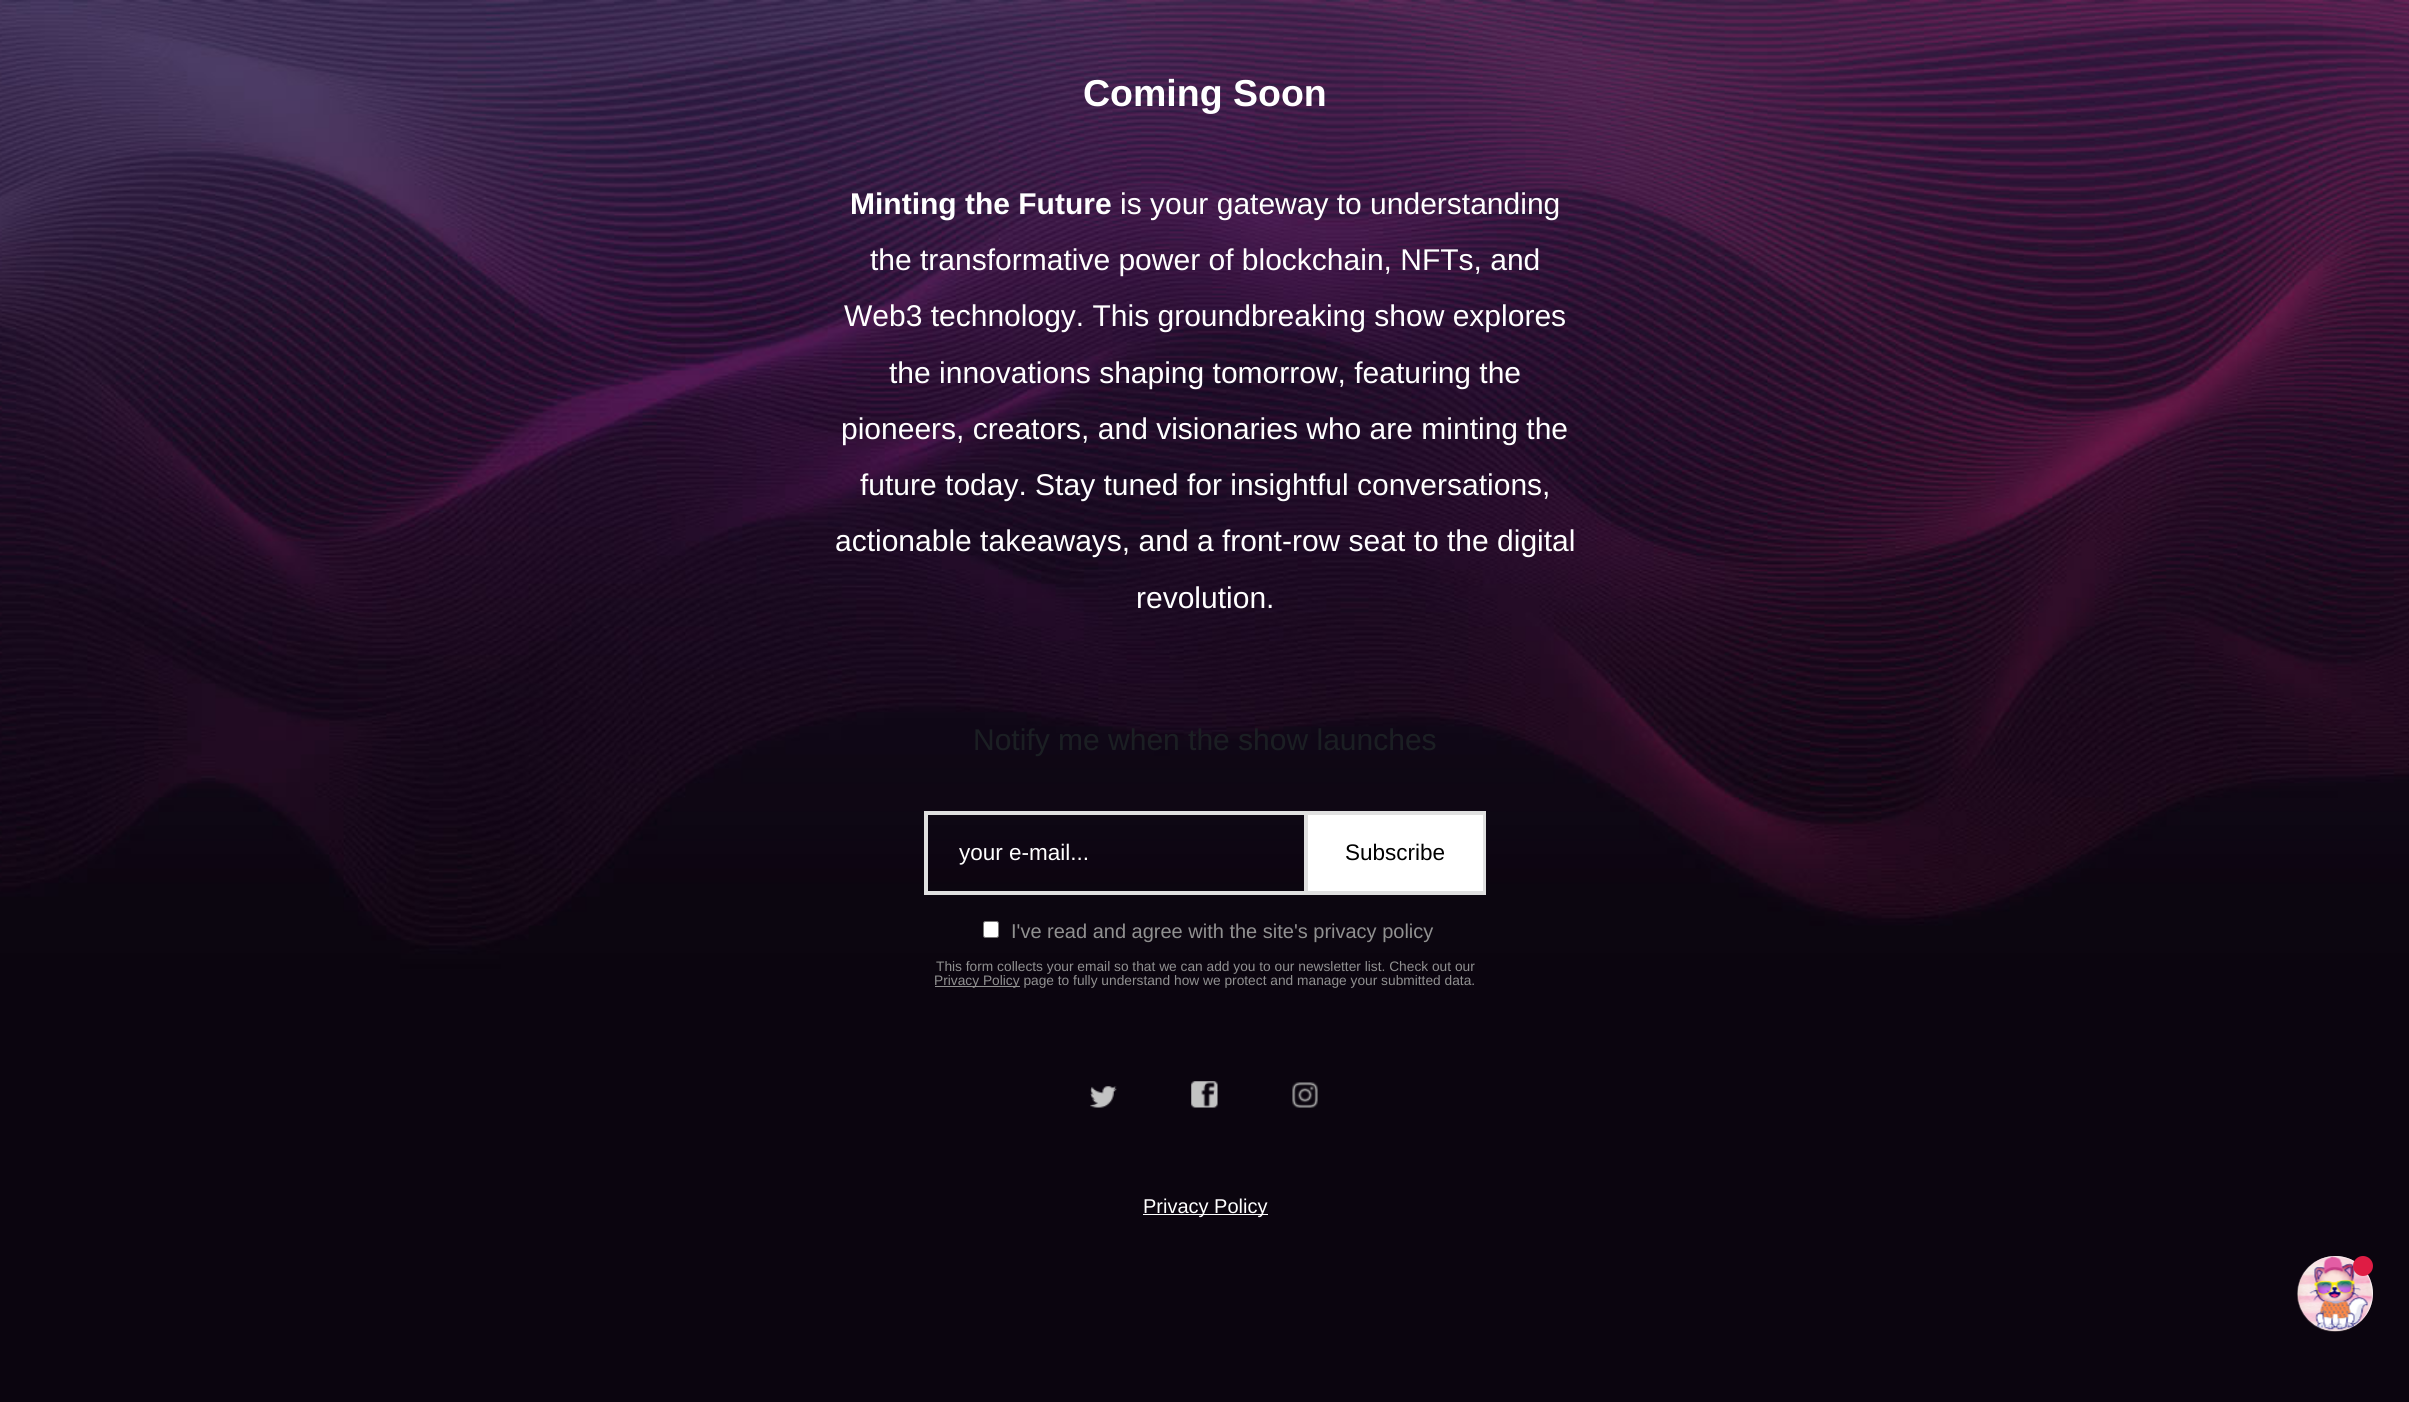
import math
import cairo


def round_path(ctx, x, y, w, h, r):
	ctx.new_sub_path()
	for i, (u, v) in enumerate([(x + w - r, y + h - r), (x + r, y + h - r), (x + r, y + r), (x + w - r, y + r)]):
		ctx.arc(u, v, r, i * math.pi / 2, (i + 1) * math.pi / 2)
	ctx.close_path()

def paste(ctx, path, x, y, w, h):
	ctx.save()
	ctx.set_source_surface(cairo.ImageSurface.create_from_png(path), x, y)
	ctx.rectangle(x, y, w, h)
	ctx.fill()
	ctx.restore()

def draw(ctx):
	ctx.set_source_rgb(1, 1, 1)
	ctx.paint()
	paste(ctx, 'media/1.png', 0, 0, 2409, 1402)
	ctx.select_font_face('Liberation Sans', cairo.FONT_SLANT_NORMAL, cairo.FONT_WEIGHT_BOLD)
	ctx.set_font_size(37.5)
	ctx.set_source_rgb(1, 1, 1)
	ctx.move_to(1083, 106)
	ctx.show_text('Coming Soon')
	ctx.set_font_size(30)
	ctx.move_to(850, 214)
	ctx.show_text('Minting the Future')
	ctx.select_font_face('Liberation Sans')
	for x, y, s in [
		(1120, 214, 'is your gateway to understanding'),
		(870, 270, 'the transformative power of blockchain, NFTs, and'),
		(844, 326, 'Web3 technology. This groundbreaking show explores'),
		(889, 383, 'the innovations shaping tomorrow, featuring the'),
		(841, 439, 'pioneers, creators, and visionaries who are minting the'),
		(860, 495, 'future today. Stay tuned for insightful conversations,'),
		(835, 551, 'actionable takeaways, and a front-row seat to the digital'),
		(1136, 608, 'revolution.'),
	]:
		ctx.move_to(x, y)
		ctx.show_text(s)
	ctx.set_source_rgb(0.106, 0.122, 0.137)
	ctx.move_to(973, 750)
	ctx.show_text('Notify me when the show launches')
	ctx.rectangle(926, 813, 558, 80)
	ctx.set_source_rgb(0.878, 0.878, 0.878)
	ctx.set_line_width(4)
	ctx.stroke()
	ctx.set_font_size(22.5)
	ctx.set_source_rgb(1, 1, 1)
	ctx.move_to(959, 860)
	ctx.show_text('your e-mail...')
	ctx.rectangle(1308, 815, 175, 76)
	ctx.fill()
	ctx.set_source_rgb(0.878, 0.878, 0.878)
	ctx.rectangle(1304, 815, 4, 76)
	ctx.fill()
	ctx.set_source_rgb(0, 0, 0)
	ctx.move_to(1345, 860)
	ctx.show_text('Subscribe')
	ctx.set_source_rgb(1, 1, 1)
	round_path(ctx, 983.5, 921.5, 15, 16, 2)
	ctx.fill_preserve()
	ctx.set_source_rgb(0.463, 0.463, 0.463)
	ctx.set_line_width(1)
	ctx.stroke()
	ctx.set_font_size(20)
	ctx.set_source_rgb(0.565, 0.565, 0.565)
	ctx.move_to(1011, 938)
	ctx.show_text('I\'ve read and agree with the site\'s privacy policy')
	ctx.set_font_size(13.75)
	ctx.move_to(936, 971)
	ctx.show_text('This form collects your email so that we can add you to our newsletter list. Check out our')
	ctx.rectangle(935, 986, 85, 1)
	ctx.fill()
	ctx.move_to(934, 985)
	ctx.show_text('Privacy Policy page to fully understand how we protect and manage your submitted data.')
	paste(ctx, 'media/2.png', 1090, 1086, 27, 22)
	paste(ctx, 'media/3.png', 1191, 1081, 27, 27)
	paste(ctx, 'media/4.png', 1292, 1082, 26, 26)
	ctx.set_source_rgb(1, 1, 1)
	ctx.rectangle(1143, 1214, 125, 1)
	ctx.fill()
	ctx.set_font_size(20)
	ctx.move_to(1143, 1213)
	ctx.show_text('Privacy Policy')
	ctx.new_path()
	ctx.arc(2335.5, 1293.5, 37.5, 0, 2 * math.pi)
	ctx.fill()
	paste(ctx, 'media/5.png', 2297, 1256, 76, 76)
	ctx.set_source_rgb(0.875, 0.11, 0.267)
	ctx.arc(2363, 1266, 10, 0, 2 * math.pi)
	ctx.fill()


surface = cairo.ImageSurface(cairo.FORMAT_RGB24, 2409, 1402)
ctx = cairo.Context(surface)
options = cairo.FontOptions()
options.set_hint_metrics(cairo.HINT_METRICS_OFF)
options.set_hint_style(cairo.HINT_STYLE_NONE)
ctx.set_font_options(options)
ctx.set_miter_limit(4)
draw(ctx)
surface.write_to_png('image.png')
